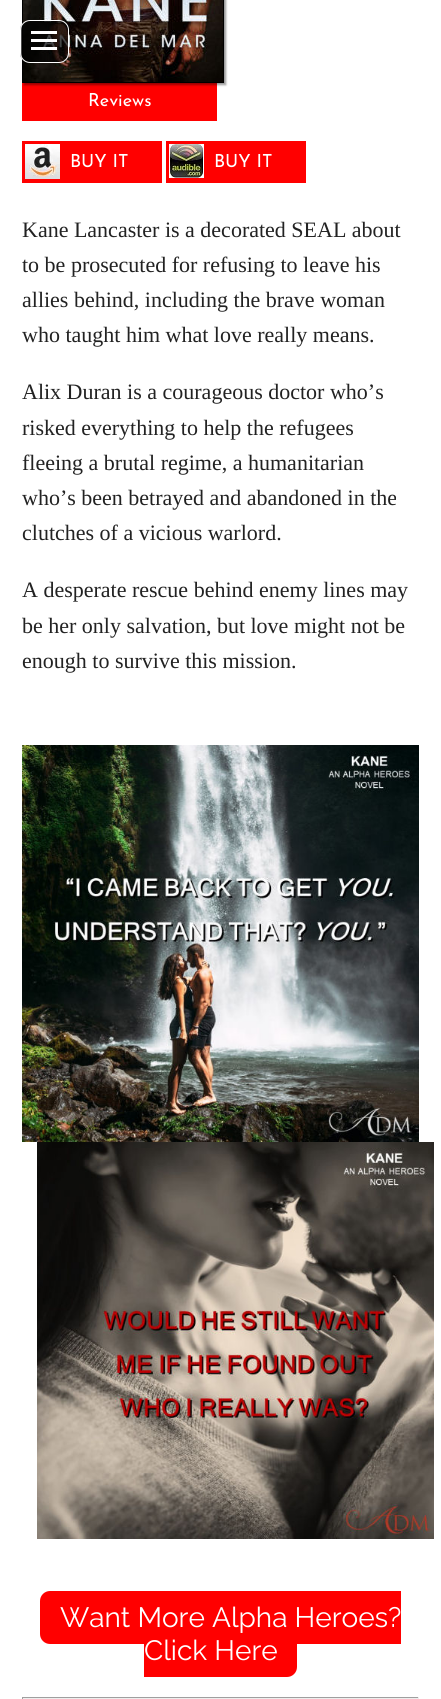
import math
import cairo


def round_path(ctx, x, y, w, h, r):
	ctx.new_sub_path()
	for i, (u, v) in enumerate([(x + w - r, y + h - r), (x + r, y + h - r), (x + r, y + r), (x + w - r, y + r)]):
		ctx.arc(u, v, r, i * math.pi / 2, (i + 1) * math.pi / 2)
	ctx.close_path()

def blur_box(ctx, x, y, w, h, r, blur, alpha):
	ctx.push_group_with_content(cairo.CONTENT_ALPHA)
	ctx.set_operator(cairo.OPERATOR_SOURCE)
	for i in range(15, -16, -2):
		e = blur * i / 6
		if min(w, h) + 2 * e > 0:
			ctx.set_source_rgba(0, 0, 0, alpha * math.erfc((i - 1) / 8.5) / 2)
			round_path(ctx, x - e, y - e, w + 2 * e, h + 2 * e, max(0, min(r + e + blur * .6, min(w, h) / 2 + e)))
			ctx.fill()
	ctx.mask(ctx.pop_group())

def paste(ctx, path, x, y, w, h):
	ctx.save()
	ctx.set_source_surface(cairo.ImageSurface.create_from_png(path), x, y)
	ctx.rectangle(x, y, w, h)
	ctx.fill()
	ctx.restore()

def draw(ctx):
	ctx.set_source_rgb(1, 1, 1)
	ctx.paint()
	ctx.set_source_rgb(1, 0, 0)
	ctx.rectangle(22, 83, 195, 38)
	ctx.fill()
	ctx.set_source_rgb(0, 0, 0)
	blur_box(ctx, 24, -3, 202, 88, 0, 1, 0.4)
	ctx.rectangle(22.5, -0.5, 201, 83)
	ctx.set_source_rgb(0, 0, 0)
	ctx.set_line_width(1)
	ctx.stroke()
	paste(ctx, 'media/2.png', 23, 0, 200, 82)
	paste(ctx, 'media/1.png', 20, 20, 49, 43)
	round_path(ctx, 20.5, 20.5, 48, 42, 9.5)
	ctx.set_source_rgb(1, 1, 1)
	ctx.stroke()
	ctx.select_font_face('Josefin Sans')
	ctx.set_font_size(18)
	ctx.move_to(88, 106)
	ctx.show_text('Reviews')
	ctx.set_source_rgb(1, 0, 0)
	ctx.rectangle(22, 141, 140, 42)
	ctx.fill()
	paste(ctx, 'media/3.png', 25, 144, 35, 35)
	ctx.set_source_rgb(1, 1, 1)
	ctx.move_to(70, 167)
	ctx.show_text('BUY IT')
	ctx.set_source_rgb(1, 0, 0)
	ctx.rectangle(166, 141, 140, 42)
	ctx.fill()
	paste(ctx, 'media/4.png', 169, 144, 35, 34)
	ctx.set_source_rgb(1, 1, 1)
	ctx.move_to(214, 167)
	ctx.show_text('BUY IT')
	ctx.select_font_face('Liberation Serif')
	ctx.set_font_size(22)
	ctx.set_source_rgb(0.133, 0.133, 0.133)
	for x, y, s in [
		(22, 237, 'Kane Lancaster is a decorated SEAL about'),
		(22, 272, 'to be prosecuted for refusing to leave his'),
		(22, 307, 'allies behind, including the brave woman'),
		(22, 342, 'who taught him what love really means.'),
		(22, 399, 'Alix Duran is a courageous doctor who’s'),
		(22, 435, 'risked everything to help the refugees'),
		(22, 470, 'fleeing a brutal regime, a humanitarian'),
		(22, 505, 'who’s been betrayed and abandoned in the'),
		(22, 540, 'clutches of a vicious warlord.'),
		(22, 597, 'A desperate rescue behind enemy lines may'),
		(22, 633, 'be her only salvation, but love might not be'),
		(22, 668, 'enough to survive this mission.'),
	]:
		ctx.move_to(x, y)
		ctx.show_text(s)
	paste(ctx, 'media/5.png', 22, 745, 397, 397)
	paste(ctx, 'media/6.png', 37, 1142, 397, 397)
	ctx.set_source_rgb(1, 0, 0)
	ctx.new_path()
	ctx.move_to(50, 1591)
	ctx.line_to(401, 1591)
	ctx.line_to(401, 1644)
	ctx.line_to(50, 1644)
	ctx.curve_to(44.5, 1644, 40, 1639.5, 40, 1634)
	ctx.line_to(40, 1601)
	ctx.curve_to(40, 1595.5, 44.5, 1591, 50, 1591)
	ctx.close_path()
	ctx.fill()
	ctx.new_path()
	ctx.move_to(144, 1624)
	ctx.line_to(287, 1624)
	ctx.curve_to(292.5, 1624, 297, 1628.5, 297, 1634)
	ctx.line_to(297, 1667)
	ctx.curve_to(297, 1672.5, 292.5, 1677, 287, 1677)
	ctx.line_to(144, 1677)
	ctx.close_path()
	ctx.fill()
	ctx.select_font_face('Raleway')
	ctx.set_font_size(28)
	ctx.set_source_rgb(1, 1, 1)
	ctx.move_to(60, 1627)
	ctx.show_text('Want More Alpha Heroes?')
	ctx.move_to(144, 1660)
	ctx.show_text('Click Here')
	ctx.set_source_rgb(0.624, 0.624, 0.624)
	ctx.rectangle(22, 1697, 397, 1)
	ctx.fill()
	ctx.set_source_rgb(0.933, 0.933, 0.933)
	ctx.rectangle(418, 1697, 1, 2)
	ctx.rectangle(22, 1698, 397, 1)
	ctx.fill()
	ctx.set_source_rgb(0.624, 0.624, 0.624)
	ctx.rectangle(22, 1697, 1, 2)
	ctx.fill()


surface = cairo.ImageSurface(cairo.FORMAT_RGB24, 441, 1699)
ctx = cairo.Context(surface)
options = cairo.FontOptions()
options.set_hint_metrics(cairo.HINT_METRICS_OFF)
options.set_hint_style(cairo.HINT_STYLE_NONE)
ctx.set_font_options(options)
ctx.set_miter_limit(4)
draw(ctx)
surface.write_to_png('image.png')
